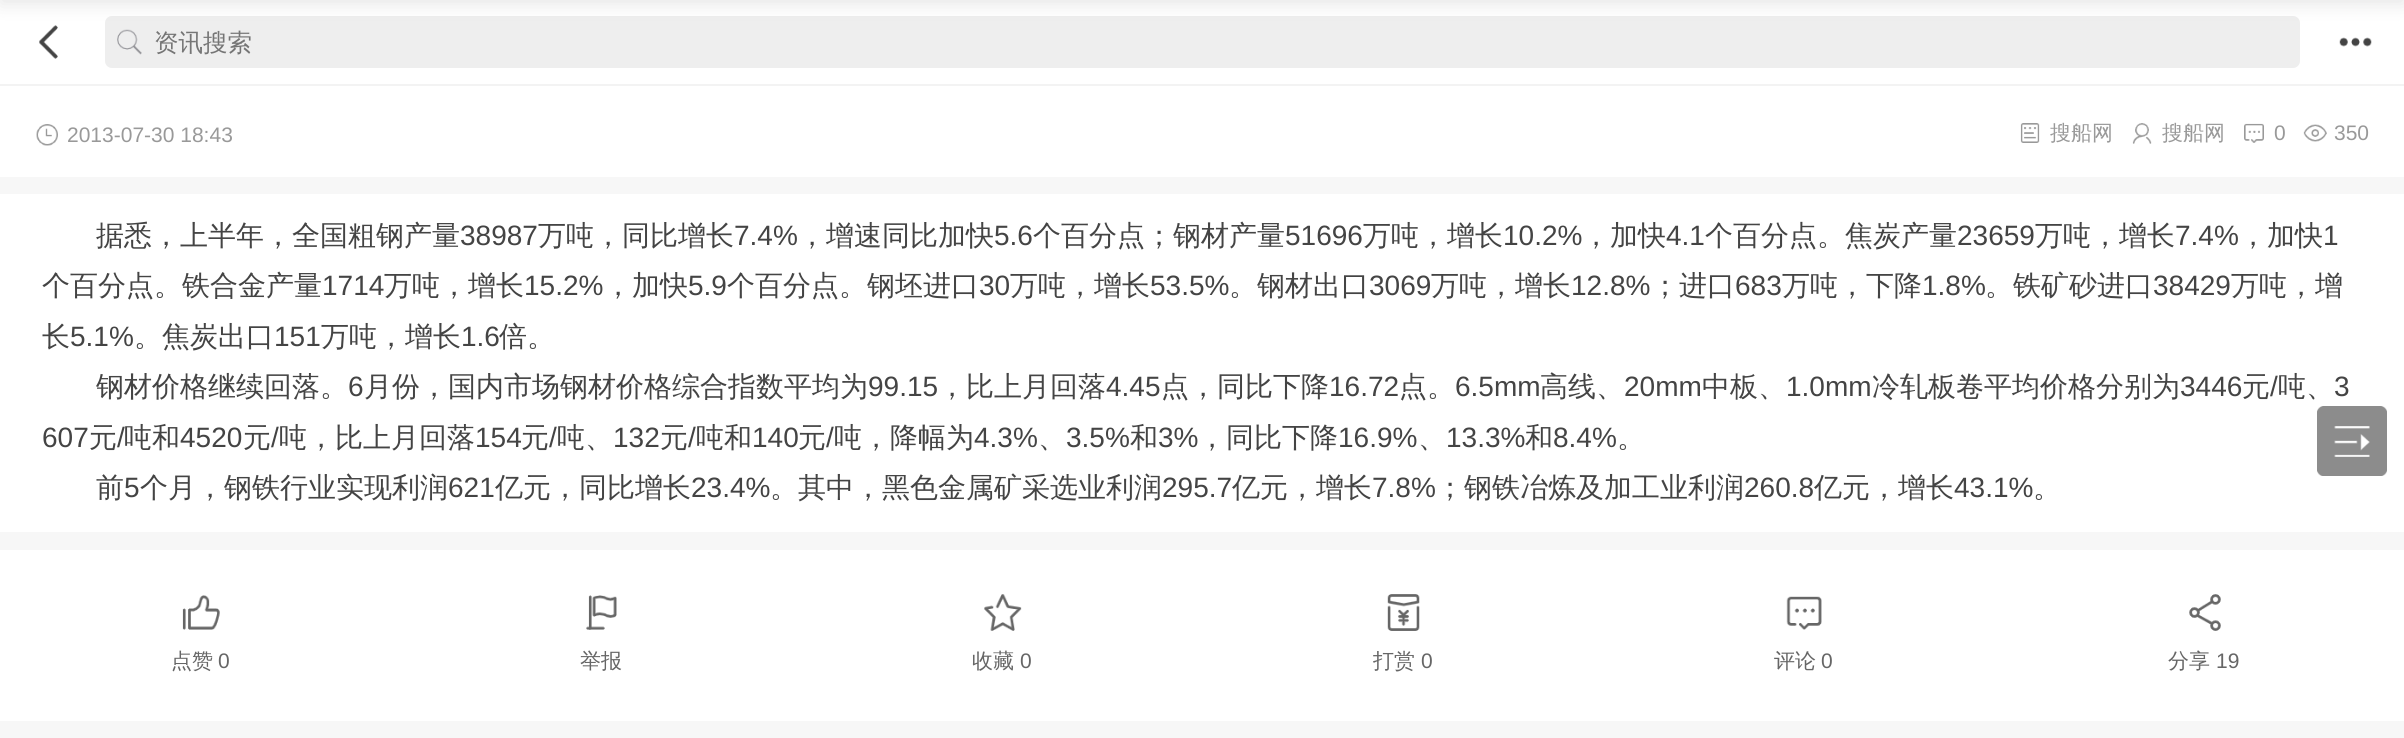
import math
import cairo


def round_path(ctx, x, y, w, h, r):
	ctx.new_sub_path()
	for i, (u, v) in enumerate([(x + w - r, y + h - r), (x + r, y + h - r), (x + r, y + r), (x + w - r, y + r)]):
		ctx.arc(u, v, r, i * math.pi / 2, (i + 1) * math.pi / 2)
	ctx.close_path()

def blur_box(ctx, x, y, w, h, r, blur, alpha):
	ctx.push_group_with_content(cairo.CONTENT_ALPHA)
	ctx.set_operator(cairo.OPERATOR_SOURCE)
	for i in range(15, -16, -2):
		e = blur * i / 6
		if min(w, h) + 2 * e > 0:
			ctx.set_source_rgba(0, 0, 0, alpha * math.erfc((i - 1) / 8.5) / 2)
			round_path(ctx, x - e, y - e, w + 2 * e, h + 2 * e, max(0, min(r + e + blur * .6, min(w, h) / 2 + e)))
			ctx.fill()
	ctx.mask(ctx.pop_group())

def paste(ctx, path, x, y, w, h):
	ctx.save()
	ctx.set_source_surface(cairo.ImageSurface.create_from_png(path), x, y)
	ctx.rectangle(x, y, w, h)
	ctx.fill()
	ctx.restore()

def draw(ctx):
	ctx.set_source_rgb(1, 1, 1)
	ctx.paint()
	paste(ctx, 'media/1.png', 39, 25, 19, 34)
	ctx.set_source_rgb(0.933, 0.933, 0.933)
	round_path(ctx, 105, 16, 2195, 52, 7)
	ctx.fill()
	paste(ctx, 'media/2.png', 117, 29, 25, 26)
	ctx.set_source_rgb(0, 0, 0)
	blur_box(ctx, 0, -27, 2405, 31, 0, 9, 0.1)
	ctx.set_source_rgb(0.953, 0.953, 0.953)
	ctx.rectangle(0, 84, 2404, 2)
	ctx.fill()
	ctx.select_font_face('WenQuanYi Zen Hei Medium')
	ctx.set_font_size(24.5)
	ctx.set_source_rgb(0.459, 0.459, 0.459)
	ctx.move_to(154, 51)
	ctx.show_text('资讯搜索')
	paste(ctx, 'media/3.png', 2339, 37, 33, 10)
	ctx.set_source_rgb(0.965, 0.965, 0.965)
	ctx.rectangle(0, 177, 2404, 17)
	ctx.fill()
	paste(ctx, 'media/4.png', 36, 124, 22, 22)
	ctx.select_font_face('Liberation Sans')
	ctx.set_font_size(21)
	ctx.set_source_rgb(0.6, 0.6, 0.6)
	ctx.move_to(67, 142)
	ctx.show_text('2013-07-30 18:43')
	paste(ctx, 'media/5.png', 2020, 123, 20, 20)
	ctx.select_font_face('WenQuanYi Zen Hei Medium')
	ctx.move_to(2050, 140)
	ctx.show_text('搜船网')
	paste(ctx, 'media/6.png', 2132, 123, 20, 21)
	ctx.move_to(2162, 140)
	ctx.show_text('搜船网')
	paste(ctx, 'media/7.png', 2244, 123, 20, 20)
	ctx.select_font_face('Liberation Sans')
	ctx.move_to(2274, 140)
	ctx.show_text('0')
	paste(ctx, 'media/8.png', 2303, 124, 24, 18)
	ctx.move_to(2334, 140)
	ctx.show_text('350')
	ctx.select_font_face('WenQuanYi Zen Hei Medium')
	ctx.set_font_size(28)
	ctx.set_source_rgb(0.267, 0.267, 0.267)
	ctx.move_to(96, 245)
	ctx.show_text('据悉，上半年，全国粗钢产量')
	ctx.select_font_face('Liberation Sans')
	ctx.move_to(460, 245)
	ctx.show_text('38987')
	ctx.select_font_face('WenQuanYi Zen Hei Medium')
	ctx.move_to(538, 245)
	ctx.show_text('万吨，同比增长')
	ctx.select_font_face('Liberation Sans')
	ctx.move_to(734, 245)
	ctx.show_text('7.4%')
	ctx.select_font_face('WenQuanYi Zen Hei Medium')
	ctx.move_to(798, 245)
	ctx.show_text('，增速同比加快')
	ctx.select_font_face('Liberation Sans')
	ctx.move_to(994, 245)
	ctx.show_text('5.6')
	ctx.select_font_face('WenQuanYi Zen Hei Medium')
	ctx.move_to(1033, 245)
	ctx.show_text('个百分点；钢材产量')
	ctx.select_font_face('Liberation Sans')
	ctx.move_to(1285, 245)
	ctx.show_text('51696')
	ctx.select_font_face('WenQuanYi Zen Hei Medium')
	ctx.move_to(1363, 245)
	ctx.show_text('万吨，增长')
	ctx.select_font_face('Liberation Sans')
	ctx.move_to(1503, 245)
	ctx.show_text('10.2%')
	ctx.select_font_face('WenQuanYi Zen Hei Medium')
	ctx.move_to(1582, 245)
	ctx.show_text('，加快')
	ctx.select_font_face('Liberation Sans')
	ctx.move_to(1666, 245)
	ctx.show_text('4.1')
	ctx.select_font_face('WenQuanYi Zen Hei Medium')
	ctx.move_to(1705, 245)
	ctx.show_text('个百分点。焦炭产量')
	ctx.select_font_face('Liberation Sans')
	ctx.move_to(1957, 245)
	ctx.show_text('23659')
	ctx.select_font_face('WenQuanYi Zen Hei Medium')
	ctx.move_to(2035, 245)
	ctx.show_text('万吨，增长')
	ctx.select_font_face('Liberation Sans')
	ctx.move_to(2175, 245)
	ctx.show_text('7.4%')
	ctx.select_font_face('WenQuanYi Zen Hei Medium')
	ctx.move_to(2239, 245)
	ctx.show_text('，加快')
	ctx.select_font_face('Liberation Sans')
	ctx.move_to(2323, 245)
	ctx.show_text('1')
	ctx.select_font_face('WenQuanYi Zen Hei Medium')
	ctx.move_to(42, 295)
	ctx.show_text('个百分点。铁合金产量')
	ctx.select_font_face('Liberation Sans')
	ctx.move_to(322, 295)
	ctx.show_text('1714')
	ctx.select_font_face('WenQuanYi Zen Hei Medium')
	ctx.move_to(384, 295)
	ctx.show_text('万吨，增长')
	ctx.select_font_face('Liberation Sans')
	ctx.move_to(524, 295)
	ctx.show_text('15.2%')
	ctx.select_font_face('WenQuanYi Zen Hei Medium')
	ctx.move_to(604, 295)
	ctx.show_text('，加快')
	ctx.select_font_face('Liberation Sans')
	ctx.move_to(688, 295)
	ctx.show_text('5.9')
	ctx.select_font_face('WenQuanYi Zen Hei Medium')
	ctx.move_to(727, 295)
	ctx.show_text('个百分点。钢坯进口')
	ctx.select_font_face('Liberation Sans')
	ctx.move_to(979, 295)
	ctx.show_text('30')
	ctx.select_font_face('WenQuanYi Zen Hei Medium')
	ctx.move_to(1010, 295)
	ctx.show_text('万吨，增长')
	ctx.select_font_face('Liberation Sans')
	ctx.move_to(1150, 295)
	ctx.show_text('53.5%')
	ctx.select_font_face('WenQuanYi Zen Hei Medium')
	ctx.move_to(1229, 295)
	ctx.show_text('。钢材出口')
	ctx.select_font_face('Liberation Sans')
	ctx.move_to(1369, 295)
	ctx.show_text('3069')
	ctx.select_font_face('WenQuanYi Zen Hei Medium')
	ctx.move_to(1431, 295)
	ctx.show_text('万吨，增长')
	ctx.select_font_face('Liberation Sans')
	ctx.move_to(1571, 295)
	ctx.show_text('12.8%')
	ctx.select_font_face('WenQuanYi Zen Hei Medium')
	ctx.move_to(1651, 295)
	ctx.show_text('；进口')
	ctx.select_font_face('Liberation Sans')
	ctx.move_to(1735, 295)
	ctx.show_text('683')
	ctx.select_font_face('WenQuanYi Zen Hei Medium')
	ctx.move_to(1782, 295)
	ctx.show_text('万吨，下降')
	ctx.select_font_face('Liberation Sans')
	ctx.move_to(1922, 295)
	ctx.show_text('1.8%')
	ctx.select_font_face('WenQuanYi Zen Hei Medium')
	ctx.move_to(1985, 295)
	ctx.show_text('。铁矿砂进口')
	ctx.select_font_face('Liberation Sans')
	ctx.move_to(2153, 295)
	ctx.show_text('38429')
	ctx.select_font_face('WenQuanYi Zen Hei Medium')
	ctx.move_to(2231, 295)
	ctx.show_text('万吨，增')
	ctx.move_to(42, 346)
	ctx.show_text('长')
	ctx.select_font_face('Liberation Sans')
	ctx.move_to(70, 346)
	ctx.show_text('5.1%')
	ctx.select_font_face('WenQuanYi Zen Hei Medium')
	ctx.move_to(134, 346)
	ctx.show_text('。焦炭出口')
	ctx.select_font_face('Liberation Sans')
	ctx.move_to(274, 346)
	ctx.show_text('151')
	ctx.select_font_face('WenQuanYi Zen Hei Medium')
	ctx.move_to(321, 346)
	ctx.show_text('万吨，增长')
	ctx.select_font_face('Liberation Sans')
	ctx.move_to(461, 346)
	ctx.show_text('1.6')
	ctx.select_font_face('WenQuanYi Zen Hei Medium')
	ctx.move_to(499, 346)
	ctx.show_text('倍。')
	ctx.move_to(96, 396)
	ctx.show_text('钢材价格继续回落。')
	ctx.select_font_face('Liberation Sans')
	ctx.move_to(348, 396)
	ctx.show_text('6')
	ctx.select_font_face('WenQuanYi Zen Hei Medium')
	ctx.move_to(364, 396)
	ctx.show_text('月份，国内市场钢材价格综合指数平均为')
	ctx.select_font_face('Liberation Sans')
	ctx.move_to(868, 396)
	ctx.show_text('99.15')
	ctx.select_font_face('WenQuanYi Zen Hei Medium')
	ctx.move_to(938, 396)
	ctx.show_text('，比上月回落')
	ctx.select_font_face('Liberation Sans')
	ctx.move_to(1106, 396)
	ctx.show_text('4.45')
	ctx.select_font_face('WenQuanYi Zen Hei Medium')
	ctx.move_to(1161, 396)
	ctx.show_text('点，同比下降')
	ctx.select_font_face('Liberation Sans')
	ctx.move_to(1329, 396)
	ctx.show_text('16.72')
	ctx.select_font_face('WenQuanYi Zen Hei Medium')
	ctx.move_to(1399, 396)
	ctx.show_text('点。')
	ctx.select_font_face('Liberation Sans')
	ctx.move_to(1455, 396)
	ctx.show_text('6.5mm')
	ctx.select_font_face('WenQuanYi Zen Hei Medium')
	ctx.move_to(1540, 396)
	ctx.show_text('高线、')
	ctx.select_font_face('Liberation Sans')
	ctx.move_to(1624, 396)
	ctx.show_text('20mm')
	ctx.select_font_face('WenQuanYi Zen Hei Medium')
	ctx.move_to(1702, 396)
	ctx.show_text('中板、')
	ctx.select_font_face('Liberation Sans')
	ctx.move_to(1786, 396)
	ctx.show_text('1.0mm')
	ctx.select_font_face('WenQuanYi Zen Hei Medium')
	ctx.move_to(1872, 396)
	ctx.show_text('冷轧板卷平均价格分别为')
	ctx.select_font_face('Liberation Sans')
	ctx.move_to(2180, 396)
	ctx.show_text('3446')
	ctx.select_font_face('WenQuanYi Zen Hei Medium')
	ctx.move_to(2242, 396)
	ctx.show_text('元')
	ctx.select_font_face('Liberation Sans')
	ctx.move_to(2270, 396)
	ctx.show_text('/')
	ctx.select_font_face('WenQuanYi Zen Hei Medium')
	ctx.move_to(2278, 396)
	ctx.show_text('吨、')
	ctx.select_font_face('Liberation Sans')
	ctx.move_to(2334, 396)
	ctx.show_text('3')
	ctx.move_to(42, 447)
	ctx.show_text('607')
	ctx.select_font_face('WenQuanYi Zen Hei Medium')
	ctx.move_to(89, 447)
	ctx.show_text('元')
	ctx.select_font_face('Liberation Sans')
	ctx.move_to(117, 447)
	ctx.show_text('/')
	ctx.select_font_face('WenQuanYi Zen Hei Medium')
	ctx.move_to(124, 447)
	ctx.show_text('吨和')
	ctx.select_font_face('Liberation Sans')
	ctx.move_to(180, 447)
	ctx.show_text('4520')
	ctx.select_font_face('WenQuanYi Zen Hei Medium')
	ctx.move_to(243, 447)
	ctx.show_text('元')
	ctx.select_font_face('Liberation Sans')
	ctx.move_to(271, 447)
	ctx.show_text('/')
	ctx.select_font_face('WenQuanYi Zen Hei Medium')
	ctx.move_to(279, 447)
	ctx.show_text('吨，比上月回落')
	ctx.select_font_face('Liberation Sans')
	ctx.move_to(475, 447)
	ctx.show_text('154')
	ctx.select_font_face('WenQuanYi Zen Hei Medium')
	ctx.move_to(521, 447)
	ctx.show_text('元')
	ctx.select_font_face('Liberation Sans')
	ctx.move_to(549, 447)
	ctx.show_text('/')
	ctx.select_font_face('WenQuanYi Zen Hei Medium')
	ctx.move_to(557, 447)
	ctx.show_text('吨、')
	ctx.select_font_face('Liberation Sans')
	ctx.move_to(613, 447)
	ctx.show_text('132')
	ctx.select_font_face('WenQuanYi Zen Hei Medium')
	ctx.move_to(660, 447)
	ctx.show_text('元')
	ctx.select_font_face('Liberation Sans')
	ctx.move_to(688, 447)
	ctx.show_text('/')
	ctx.select_font_face('WenQuanYi Zen Hei Medium')
	ctx.move_to(696, 447)
	ctx.show_text('吨和')
	ctx.select_font_face('Liberation Sans')
	ctx.move_to(752, 447)
	ctx.show_text('140')
	ctx.select_font_face('WenQuanYi Zen Hei Medium')
	ctx.move_to(798, 447)
	ctx.show_text('元')
	ctx.select_font_face('Liberation Sans')
	ctx.move_to(826, 447)
	ctx.show_text('/')
	ctx.select_font_face('WenQuanYi Zen Hei Medium')
	ctx.move_to(834, 447)
	ctx.show_text('吨，降幅为')
	ctx.select_font_face('Liberation Sans')
	ctx.move_to(974, 447)
	ctx.show_text('4.3%')
	ctx.select_font_face('WenQuanYi Zen Hei Medium')
	ctx.move_to(1038, 447)
	ctx.show_text('、')
	ctx.select_font_face('Liberation Sans')
	ctx.move_to(1066, 447)
	ctx.show_text('3.5%')
	ctx.select_font_face('WenQuanYi Zen Hei Medium')
	ctx.move_to(1130, 447)
	ctx.show_text('和')
	ctx.select_font_face('Liberation Sans')
	ctx.move_to(1158, 447)
	ctx.show_text('3%')
	ctx.select_font_face('WenQuanYi Zen Hei Medium')
	ctx.move_to(1198, 447)
	ctx.show_text('，同比下降')
	ctx.select_font_face('Liberation Sans')
	ctx.move_to(1338, 447)
	ctx.show_text('16.9%')
	ctx.select_font_face('WenQuanYi Zen Hei Medium')
	ctx.move_to(1418, 447)
	ctx.show_text('、')
	ctx.select_font_face('Liberation Sans')
	ctx.move_to(1446, 447)
	ctx.show_text('13.3%')
	ctx.select_font_face('WenQuanYi Zen Hei Medium')
	ctx.move_to(1525, 447)
	ctx.show_text('和')
	ctx.select_font_face('Liberation Sans')
	ctx.move_to(1553, 447)
	ctx.show_text('8.4%')
	ctx.select_font_face('WenQuanYi Zen Hei Medium')
	ctx.move_to(1617, 447)
	ctx.show_text('。')
	ctx.move_to(96, 497)
	ctx.show_text('前')
	ctx.select_font_face('Liberation Sans')
	ctx.move_to(124, 497)
	ctx.show_text('5')
	ctx.select_font_face('WenQuanYi Zen Hei Medium')
	ctx.move_to(140, 497)
	ctx.show_text('个月，钢铁行业实现利润')
	ctx.select_font_face('Liberation Sans')
	ctx.move_to(448, 497)
	ctx.show_text('621')
	ctx.select_font_face('WenQuanYi Zen Hei Medium')
	ctx.move_to(495, 497)
	ctx.show_text('亿元，同比增长')
	ctx.select_font_face('Liberation Sans')
	ctx.move_to(691, 497)
	ctx.show_text('23.4%')
	ctx.select_font_face('WenQuanYi Zen Hei Medium')
	ctx.move_to(770, 497)
	ctx.show_text('。其中，黑色金属矿采选业利润')
	ctx.select_font_face('Liberation Sans')
	ctx.move_to(1162, 497)
	ctx.show_text('295.7')
	ctx.select_font_face('WenQuanYi Zen Hei Medium')
	ctx.move_to(1232, 497)
	ctx.show_text('亿元，增长')
	ctx.select_font_face('Liberation Sans')
	ctx.move_to(1372, 497)
	ctx.show_text('7.8%')
	ctx.select_font_face('WenQuanYi Zen Hei Medium')
	ctx.move_to(1436, 497)
	ctx.show_text('；钢铁冶炼及加工业利润')
	ctx.select_font_face('Liberation Sans')
	ctx.move_to(1744, 497)
	ctx.show_text('260.8')
	ctx.select_font_face('WenQuanYi Zen Hei Medium')
	ctx.move_to(1814, 497)
	ctx.show_text('亿元，增长')
	ctx.select_font_face('Liberation Sans')
	ctx.move_to(1954, 497)
	ctx.show_text('43.1%')
	ctx.select_font_face('WenQuanYi Zen Hei Medium')
	ctx.move_to(2033, 497)
	ctx.show_text('。')
	paste(ctx, 'media/9.png', 2317, 406, 70, 70)
	ctx.set_source_rgb(0.965, 0.965, 0.965)
	ctx.rectangle(0, 532, 2404, 18)
	ctx.fill()
	paste(ctx, 'media/10.png', 182, 595, 38, 35)
	ctx.set_font_size(21)
	ctx.set_source_rgb(0.4, 0.4, 0.4)
	ctx.move_to(171, 668)
	ctx.show_text('点赞')
	ctx.select_font_face('Liberation Sans')
	ctx.move_to(218, 668)
	ctx.show_text('0')
	paste(ctx, 'media/11.png', 586, 595, 31, 35)
	ctx.select_font_face('WenQuanYi Zen Hei Medium')
	ctx.move_to(580, 668)
	ctx.show_text('举报')
	paste(ctx, 'media/12.png', 984, 594, 38, 37)
	ctx.move_to(972, 668)
	ctx.show_text('收藏')
	ctx.select_font_face('Liberation Sans')
	ctx.move_to(1020, 668)
	ctx.show_text('0')
	paste(ctx, 'media/13.png', 1387, 594, 33, 37)
	ctx.select_font_face('WenQuanYi Zen Hei Medium')
	ctx.move_to(1373, 668)
	ctx.show_text('打赏')
	ctx.select_font_face('Liberation Sans')
	ctx.move_to(1421, 668)
	ctx.show_text('0')
	paste(ctx, 'media/14.png', 1786, 596, 36, 34)
	ctx.select_font_face('WenQuanYi Zen Hei Medium')
	ctx.move_to(1774, 668)
	ctx.show_text('评论')
	ctx.select_font_face('Liberation Sans')
	ctx.move_to(1821, 668)
	ctx.show_text('0')
	paste(ctx, 'media/15.png', 2189, 594, 32, 37)
	ctx.select_font_face('WenQuanYi Zen Hei Medium')
	ctx.move_to(2168, 668)
	ctx.show_text('分享')
	ctx.select_font_face('Liberation Sans')
	ctx.move_to(2216, 668)
	ctx.show_text('19')
	ctx.set_source_rgb(0.965, 0.965, 0.965)
	ctx.rectangle(0, 721, 2404, 17)
	ctx.fill()


surface = cairo.ImageSurface(cairo.FORMAT_RGB24, 2404, 738)
ctx = cairo.Context(surface)
options = cairo.FontOptions()
options.set_hint_metrics(cairo.HINT_METRICS_OFF)
options.set_hint_style(cairo.HINT_STYLE_NONE)
ctx.set_font_options(options)
ctx.set_miter_limit(4)
draw(ctx)
surface.write_to_png('image.png')
